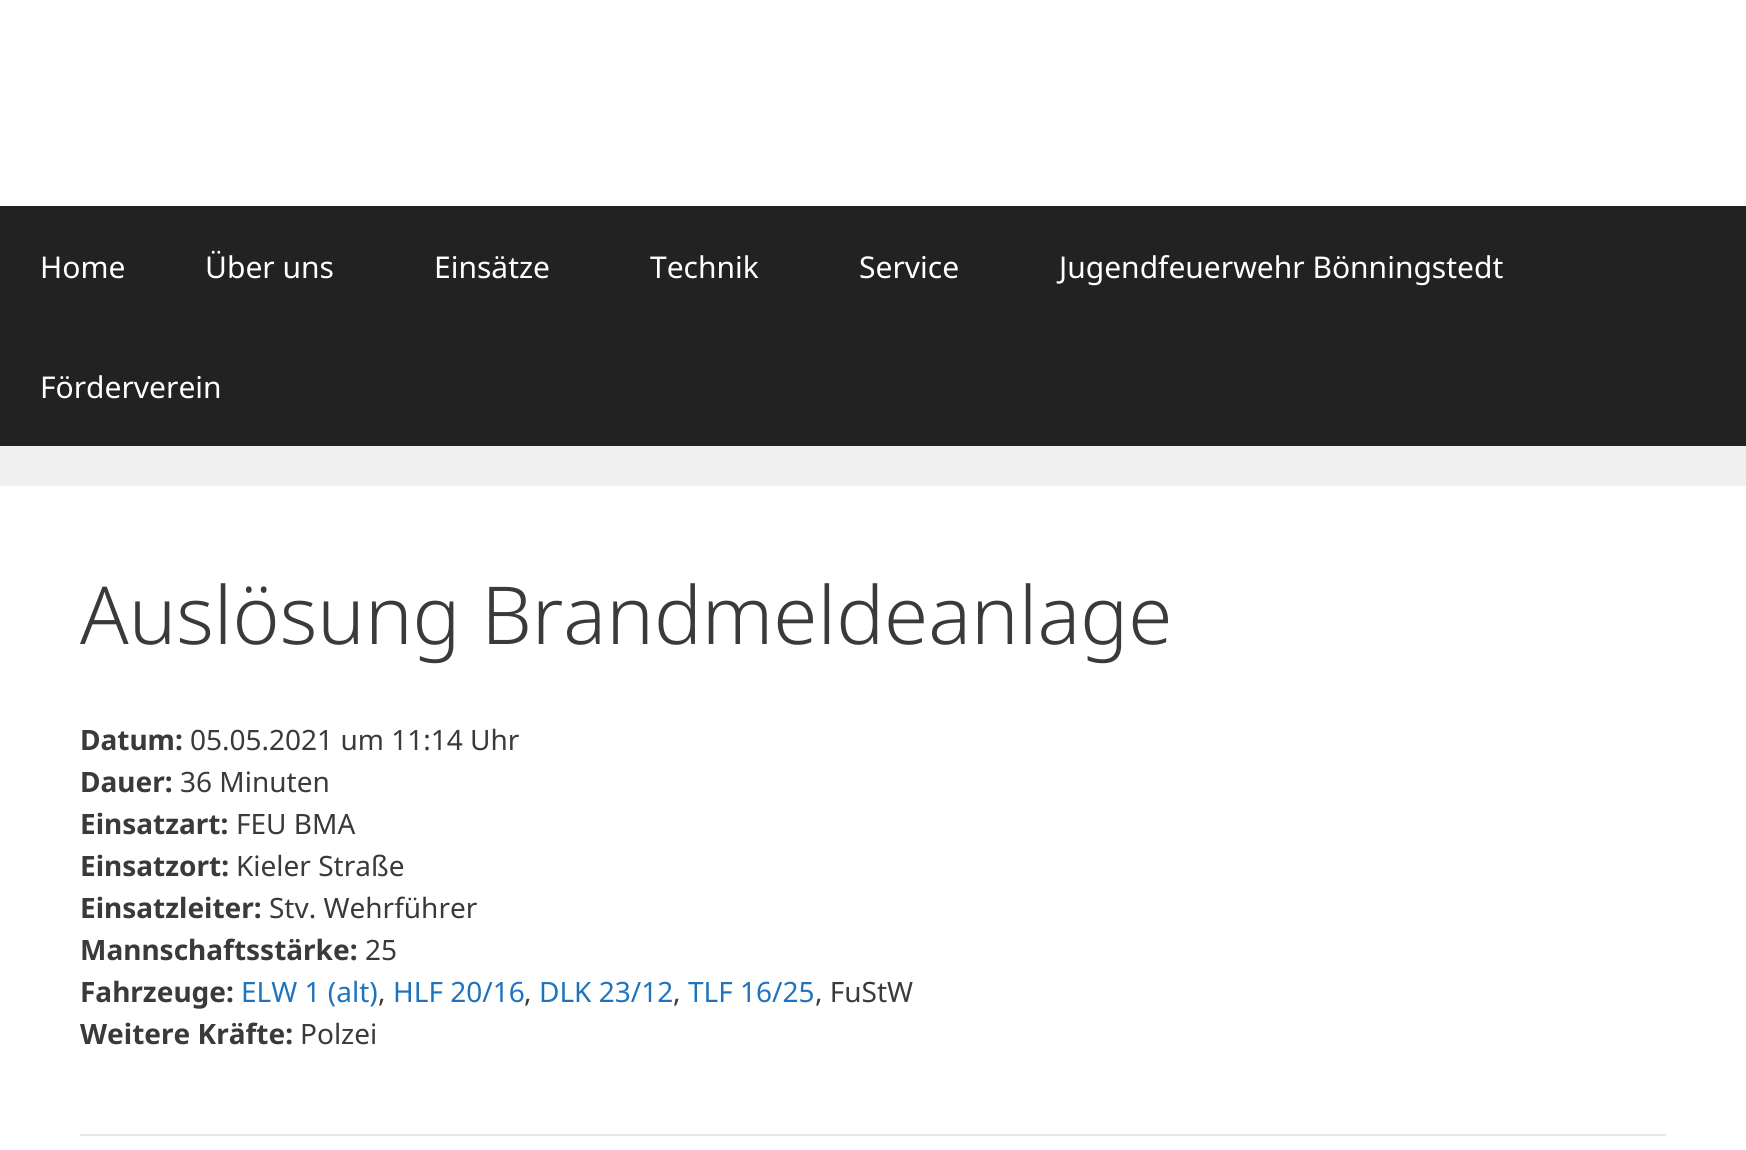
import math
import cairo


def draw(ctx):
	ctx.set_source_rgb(0.937, 0.937, 0.937)
	ctx.paint()
	ctx.set_source_rgb(1, 1, 1)
	ctx.rectangle(0, 0, 1746, 206)
	ctx.fill()
	ctx.set_source_rgb(0.133, 0.133, 0.133)
	ctx.rectangle(0, 206, 1746, 240)
	ctx.fill()
	ctx.select_font_face('Noto Sans')
	ctx.set_font_size(30)
	ctx.set_source_rgb(1, 1, 1)
	for x, y, s in [
		(40, 278, 'Home'),
		(205, 278, 'Über uns'),
		(434, 278, 'Einsätze'),
		(650, 278, 'Technik'),
		(859, 278, 'Service'),
		(1059, 278, 'Jugendfeuerwehr Bönningstedt'),
		(40, 398, 'Förderverein'),
	]:
		ctx.move_to(x, y)
		ctx.show_text(s)
	ctx.rectangle(0, 486, 1746, 664)
	ctx.fill()
	ctx.select_font_face('Noto Sans Light')
	ctx.set_font_size(80)
	ctx.set_source_rgb(0.227, 0.227, 0.227)
	ctx.move_to(80, 644)
	ctx.show_text('Auslösung Brandmeldeanlage')
	ctx.select_font_face('Noto Sans', cairo.FONT_SLANT_NORMAL, cairo.FONT_WEIGHT_BOLD)
	ctx.set_font_size(28)
	ctx.move_to(80, 750)
	ctx.show_text('Datum:')
	ctx.select_font_face('Noto Sans')
	ctx.move_to(190, 750)
	ctx.show_text('05.05.2021 um 11:14 Uhr')
	ctx.select_font_face('Noto Sans', cairo.FONT_SLANT_NORMAL, cairo.FONT_WEIGHT_BOLD)
	ctx.move_to(80, 792)
	ctx.show_text('Dauer:')
	ctx.select_font_face('Noto Sans')
	ctx.move_to(180, 792)
	ctx.show_text('36 Minuten')
	ctx.select_font_face('Noto Sans', cairo.FONT_SLANT_NORMAL, cairo.FONT_WEIGHT_BOLD)
	ctx.move_to(80, 834)
	ctx.show_text('Einsatzart:')
	ctx.select_font_face('Noto Sans')
	ctx.move_to(236, 834)
	ctx.show_text('FEU BMA')
	ctx.select_font_face('Noto Sans', cairo.FONT_SLANT_NORMAL, cairo.FONT_WEIGHT_BOLD)
	ctx.move_to(80, 876)
	ctx.show_text('Einsatzort:')
	ctx.select_font_face('Noto Sans')
	ctx.move_to(236, 876)
	ctx.show_text('Kieler Straße')
	ctx.select_font_face('Noto Sans', cairo.FONT_SLANT_NORMAL, cairo.FONT_WEIGHT_BOLD)
	ctx.move_to(80, 918)
	ctx.show_text('Einsatzleiter:')
	ctx.select_font_face('Noto Sans')
	ctx.move_to(269, 918)
	ctx.show_text('Stv. Wehrführer')
	ctx.select_font_face('Noto Sans', cairo.FONT_SLANT_NORMAL, cairo.FONT_WEIGHT_BOLD)
	ctx.move_to(80, 960)
	ctx.show_text('Mannschaftsstärke:')
	ctx.select_font_face('Noto Sans')
	ctx.move_to(365, 960)
	ctx.show_text('25')
	ctx.select_font_face('Noto Sans', cairo.FONT_SLANT_NORMAL, cairo.FONT_WEIGHT_BOLD)
	ctx.move_to(80, 1002)
	ctx.show_text('Fahrzeuge:')
	ctx.select_font_face('Noto Sans')
	ctx.set_source_rgb(0.118, 0.451, 0.745)
	ctx.move_to(241, 1002)
	ctx.show_text('ELW 1 (alt)')
	ctx.set_source_rgb(0.227, 0.227, 0.227)
	ctx.move_to(378, 1002)
	ctx.show_text(',')
	ctx.set_source_rgb(0.118, 0.451, 0.745)
	ctx.move_to(393, 1002)
	ctx.show_text('HLF 20/16')
	ctx.set_source_rgb(0.227, 0.227, 0.227)
	ctx.move_to(524, 1002)
	ctx.show_text(',')
	ctx.set_source_rgb(0.118, 0.451, 0.745)
	ctx.move_to(539, 1002)
	ctx.show_text('DLK 23/12')
	ctx.set_source_rgb(0.227, 0.227, 0.227)
	ctx.move_to(673, 1002)
	ctx.show_text(',')
	ctx.set_source_rgb(0.118, 0.451, 0.745)
	ctx.move_to(688, 1002)
	ctx.show_text('TLF 16/25')
	ctx.set_source_rgb(0.227, 0.227, 0.227)
	ctx.move_to(815, 1002)
	ctx.show_text(', FuStW')
	ctx.select_font_face('Noto Sans', cairo.FONT_SLANT_NORMAL, cairo.FONT_WEIGHT_BOLD)
	ctx.move_to(80, 1044)
	ctx.show_text('Weitere Kräfte:')
	ctx.select_font_face('Noto Sans')
	ctx.move_to(300, 1044)
	ctx.show_text('Polzei')
	ctx.set_source_rgb(0.902, 0.902, 0.902)
	ctx.rectangle(80, 1134, 1586, 2)
	ctx.fill()


surface = cairo.ImageSurface(cairo.FORMAT_RGB24, 1746, 1150)
ctx = cairo.Context(surface)
options = cairo.FontOptions()
options.set_hint_metrics(cairo.HINT_METRICS_OFF)
options.set_hint_style(cairo.HINT_STYLE_NONE)
ctx.set_font_options(options)
ctx.set_miter_limit(4)
draw(ctx)
surface.write_to_png('image.png')
